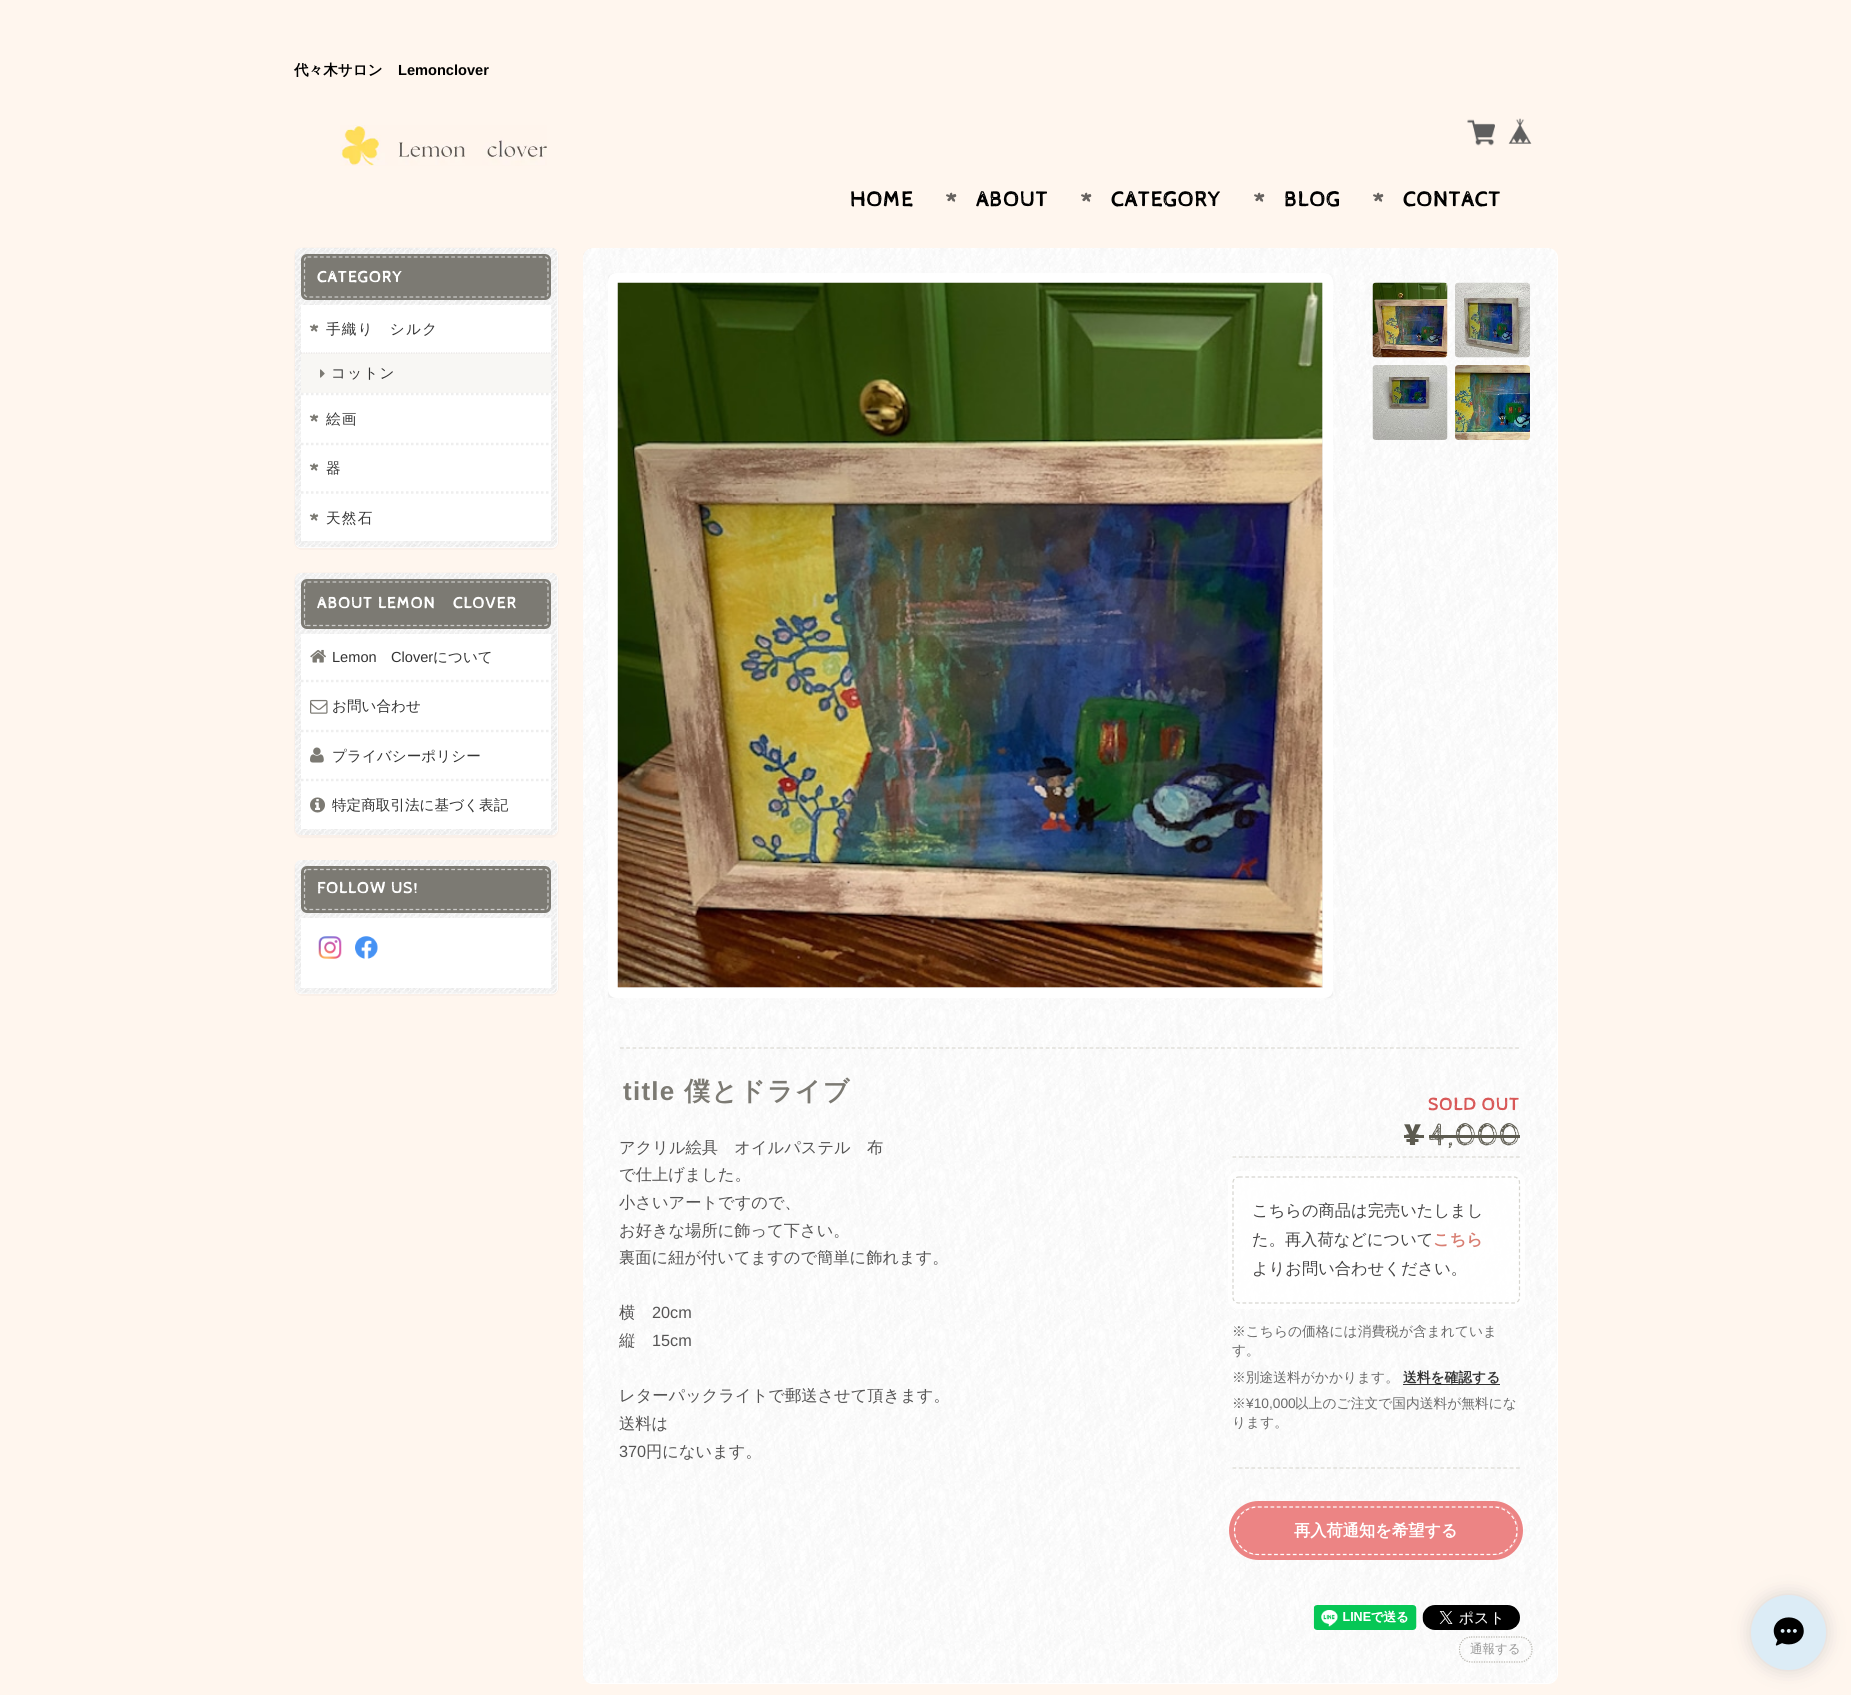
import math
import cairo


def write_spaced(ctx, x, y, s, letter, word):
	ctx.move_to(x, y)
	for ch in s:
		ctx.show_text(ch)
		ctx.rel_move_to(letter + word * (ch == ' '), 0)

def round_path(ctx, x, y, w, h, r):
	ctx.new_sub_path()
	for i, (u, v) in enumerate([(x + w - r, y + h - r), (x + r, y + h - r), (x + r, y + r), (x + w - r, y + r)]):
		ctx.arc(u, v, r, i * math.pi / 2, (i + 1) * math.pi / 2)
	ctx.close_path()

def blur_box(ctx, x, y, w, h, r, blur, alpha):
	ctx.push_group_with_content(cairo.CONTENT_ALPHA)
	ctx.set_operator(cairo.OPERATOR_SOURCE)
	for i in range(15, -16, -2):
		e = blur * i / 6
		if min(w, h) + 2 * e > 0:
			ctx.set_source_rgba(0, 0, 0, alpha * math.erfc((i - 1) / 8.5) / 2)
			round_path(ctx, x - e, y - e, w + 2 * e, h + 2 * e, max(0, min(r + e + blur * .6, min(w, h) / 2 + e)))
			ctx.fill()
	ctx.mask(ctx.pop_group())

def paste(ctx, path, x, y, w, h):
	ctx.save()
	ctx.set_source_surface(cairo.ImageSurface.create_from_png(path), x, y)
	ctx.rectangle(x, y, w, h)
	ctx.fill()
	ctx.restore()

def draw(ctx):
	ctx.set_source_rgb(1, 0.961, 0.933)
	ctx.paint()
	ctx.select_font_face('WenQuanYi Zen Hei', cairo.FONT_SLANT_NORMAL, cairo.FONT_WEIGHT_BOLD)
	ctx.set_font_size(14.6)
	ctx.set_source_rgb(0, 0, 0)
	ctx.move_to(294, 75)
	ctx.show_text('代々木サロン')
	ctx.select_font_face('Liberation Sans', cairo.FONT_SLANT_NORMAL, cairo.FONT_WEIGHT_BOLD)
	ctx.move_to(398, 75)
	ctx.show_text('Lemonclover')
	paste(ctx, 'media/1.png', 340, 125, 207, 41)
	paste(ctx, 'media/2.png', 1467, 119, 28, 27)
	paste(ctx, 'media/3.png', 1508, 118, 24, 26)
	ctx.select_font_face('Cabin Sketch', cairo.FONT_SLANT_NORMAL, cairo.FONT_WEIGHT_BOLD)
	ctx.set_font_size(21.5)
	write_spaced(ctx, 850, 206, 'HOME', 1.25, 0)
	ctx.set_font_size(32)
	ctx.set_source_rgb(0.4, 0.384, 0.373)
	write_spaced(ctx, 945, 212, '*', 1.25, 0)
	ctx.set_font_size(21.5)
	ctx.set_source_rgb(0, 0, 0)
	write_spaced(ctx, 976, 206, 'ABOUT', 1.25, 0)
	ctx.set_font_size(32)
	ctx.set_source_rgb(0.4, 0.384, 0.373)
	write_spaced(ctx, 1080, 212, '*', 1.25, 0)
	ctx.set_font_size(21.5)
	ctx.set_source_rgb(0, 0, 0)
	write_spaced(ctx, 1111, 206, 'CATEGORY', 1.25, 0)
	ctx.set_font_size(32)
	ctx.set_source_rgb(0.4, 0.384, 0.373)
	write_spaced(ctx, 1253, 212, '*', 1.25, 0)
	ctx.set_font_size(21.5)
	ctx.set_source_rgb(0, 0, 0)
	write_spaced(ctx, 1284, 206, 'BLOG', 1.25, 0)
	ctx.set_font_size(32)
	ctx.set_source_rgb(0.4, 0.384, 0.373)
	write_spaced(ctx, 1372, 212, '*', 1.25, 0)
	ctx.set_font_size(21.5)
	ctx.set_source_rgb(0, 0, 0)
	write_spaced(ctx, 1403, 206, 'CONTACT', 1.25, 0)
	ctx.set_source_rgb(0.98, 0.941, 0.914)
	ctx.new_path()
	ctx.move_to(295, 251)
	ctx.curve_to(295, 253, 294, 254, 294, 256)
	ctx.line_to(294, 542)
	ctx.curve_to(294, 546, 298, 550, 302, 550)
	ctx.line_to(551, 550)
	ctx.curve_to(555, 550, 559, 546, 559, 542)
	ctx.line_to(559, 256)
	ctx.curve_to(559, 254, 558, 251, 556, 250)
	ctx.curve_to(557, 251, 558, 252, 558, 254)
	ctx.line_to(558, 541)
	ctx.curve_to(558, 545, 555, 548, 551, 548)
	ctx.line_to(301, 548)
	ctx.curve_to(298, 548, 295, 545, 295, 541)
	ctx.line_to(295, 254)
	ctx.close_path()
	ctx.fill()
	ctx.set_source_rgb(1, 1, 1)
	round_path(ctx, 295, 248, 263, 300, 6)
	ctx.fill()
	paste(ctx, 'media/4.png', 295, 247, 263, 301)
	round_path(ctx, 302.5, 255.5, 247, 43, 4.5)
	ctx.set_source_rgb(0.486, 0.478, 0.451)
	ctx.set_line_width(3)
	ctx.stroke()
	round_path(ctx, 304, 256, 245, 42, 4)
	ctx.fill()
	ctx.new_path()
	ctx.move_to(307.5, 257)
	ctx.line_to(545, 257)
	ctx.curve_to(546.5, 257, 548, 258.5, 548, 260)
	ctx.line_to(548, 294)
	ctx.curve_to(548, 295.5, 546.5, 297, 545, 297)
	ctx.line_to(307.5, 297)
	ctx.curve_to(306, 297, 304.5, 295.5, 304.5, 294)
	ctx.line_to(304.5, 260)
	ctx.curve_to(304.5, 258.5, 306, 257, 307.5, 257)
	ctx.close_path()
	ctx.set_source_rgba(1, 1, 1, 0.61)
	ctx.set_line_width(1.2)
	ctx.set_dash([3.75, 2.5])
	ctx.stroke()
	ctx.set_font_size(16.25)
	ctx.set_source_rgb(1, 1, 1)
	write_spaced(ctx, 317, 282, 'CATEGORY', 1.25, 0)
	ctx.rectangle(301, 305, 250, 48)
	ctx.fill()
	ctx.set_font_size(26)
	ctx.set_source_rgb(0.486, 0.478, 0.451)
	write_spaced(ctx, 309, 340, '*', 1.25, 0)
	ctx.select_font_face('WenQuanYi Zen Hei Medium')
	ctx.set_font_size(14.6)
	ctx.set_source_rgb(0.2, 0.2, 0.2)
	write_spaced(ctx, 326, 334, '手織り　シルク', 1.25, 0)
	ctx.set_source_rgb(0.969, 0.965, 0.957)
	ctx.rectangle(301, 353, 250, 40)
	ctx.fill()
	ctx.new_path()
	ctx.move_to(301, 353)
	ctx.line_to(551, 353)
	ctx.set_source_rgb(0.906, 0.89, 0.89)
	ctx.set_dash([1.25, 1.25])
	ctx.stroke()
	paste(ctx, 'media/5.png', 320, 369, 5, 9)
	ctx.set_source_rgb(0.2, 0.2, 0.2)
	write_spaced(ctx, 331, 378, 'コットン', 1.25, 0)
	ctx.set_source_rgb(1, 1, 1)
	ctx.rectangle(301, 393, 250, 148)
	ctx.fill()
	ctx.new_path()
	ctx.move_to(301, 394)
	ctx.line_to(551, 394)
	ctx.set_source_rgb(0.933, 0.933, 0.933)
	ctx.set_line_width(2.5)
	ctx.set_dash([2.5, 2.5])
	ctx.stroke()
	ctx.select_font_face('Cabin Sketch', cairo.FONT_SLANT_NORMAL, cairo.FONT_WEIGHT_BOLD)
	ctx.set_font_size(26)
	ctx.set_source_rgb(0.486, 0.478, 0.451)
	write_spaced(ctx, 309, 430, '*', 1.25, 0)
	ctx.select_font_face('WenQuanYi Zen Hei Medium')
	ctx.set_font_size(14.6)
	ctx.set_source_rgb(0.2, 0.2, 0.2)
	write_spaced(ctx, 326, 424, '絵画', 1.25, 0)
	ctx.new_path()
	ctx.move_to(301, 444)
	ctx.line_to(551, 444)
	ctx.set_source_rgb(0.933, 0.933, 0.933)
	ctx.stroke()
	ctx.select_font_face('Cabin Sketch', cairo.FONT_SLANT_NORMAL, cairo.FONT_WEIGHT_BOLD)
	ctx.set_font_size(26)
	ctx.set_source_rgb(0.486, 0.478, 0.451)
	write_spaced(ctx, 309, 479, '*', 1.25, 0)
	ctx.select_font_face('WenQuanYi Zen Hei Medium')
	ctx.set_font_size(14.6)
	ctx.set_source_rgb(0.2, 0.2, 0.2)
	write_spaced(ctx, 326, 473, '器', 1.25, 0)
	ctx.new_path()
	ctx.move_to(301, 492.5)
	ctx.line_to(551, 492.5)
	ctx.set_source_rgb(0.933, 0.933, 0.933)
	ctx.stroke()
	ctx.select_font_face('Cabin Sketch', cairo.FONT_SLANT_NORMAL, cairo.FONT_WEIGHT_BOLD)
	ctx.set_font_size(26)
	ctx.set_source_rgb(0.486, 0.478, 0.451)
	write_spaced(ctx, 309, 529, '*', 1.25, 0)
	ctx.select_font_face('WenQuanYi Zen Hei Medium')
	ctx.set_font_size(14.6)
	ctx.set_source_rgb(0.2, 0.2, 0.2)
	write_spaced(ctx, 326, 523, '天然石', 1.25, 0)
	ctx.set_source_rgb(0.98, 0.941, 0.914)
	ctx.new_path()
	ctx.move_to(295, 576)
	ctx.curve_to(295, 578, 294, 579, 294, 581)
	ctx.line_to(294, 830)
	ctx.curve_to(294, 834, 298, 838, 302, 838)
	ctx.line_to(551, 838)
	ctx.curve_to(555, 838, 559, 834, 559, 830)
	ctx.line_to(559, 581)
	ctx.curve_to(559, 579, 558, 576, 556, 575)
	ctx.curve_to(557, 576, 558, 577, 558, 579)
	ctx.line_to(558, 829)
	ctx.curve_to(558, 832, 555, 835, 551, 835)
	ctx.line_to(301, 835)
	ctx.curve_to(298, 835, 295, 832, 295, 829)
	ctx.line_to(295, 579)
	ctx.close_path()
	ctx.fill()
	ctx.set_source_rgb(1, 1, 1)
	round_path(ctx, 295, 573, 263, 262, 6)
	ctx.fill()
	paste(ctx, 'media/6.png', 295, 572, 263, 263)
	round_path(ctx, 302.5, 580.5, 247, 47, 4.5)
	ctx.set_source_rgb(0.486, 0.478, 0.451)
	ctx.set_line_width(3)
	ctx.set_dash([])
	ctx.stroke()
	round_path(ctx, 304, 581, 245, 45, 4)
	ctx.fill()
	ctx.new_path()
	ctx.move_to(307.5, 582)
	ctx.line_to(545, 582)
	ctx.curve_to(546.5, 582, 548, 583.5, 548, 585)
	ctx.line_to(548, 622.5)
	ctx.curve_to(548, 624, 546.5, 625.5, 545, 625.5)
	ctx.line_to(307.5, 625.5)
	ctx.curve_to(306, 625.5, 304.5, 624, 304.5, 622.5)
	ctx.line_to(304.5, 585)
	ctx.curve_to(304.5, 583.5, 306, 582, 307.5, 582)
	ctx.close_path()
	ctx.set_source_rgba(1, 1, 1, 0.61)
	ctx.set_line_width(1.2)
	ctx.set_dash([3.75, 2.5])
	ctx.stroke()
	ctx.select_font_face('Cabin Sketch', cairo.FONT_SLANT_NORMAL, cairo.FONT_WEIGHT_BOLD)
	ctx.set_font_size(16.25)
	ctx.set_source_rgb(1, 1, 1)
	write_spaced(ctx, 317, 608, 'ABOUT LEMON', 1.25, 0)
	write_spaced(ctx, 453, 608, 'CLOVER', 1.25, 0)
	ctx.rectangle(301, 634, 250, 195)
	ctx.fill()
	paste(ctx, 'media/7.png', 310, 649, 16, 14)
	ctx.select_font_face('Liberation Sans')
	ctx.set_font_size(14.6)
	ctx.set_source_rgb(0.2, 0.2, 0.2)
	ctx.move_to(332, 662)
	ctx.show_text('Lemon')
	ctx.move_to(391, 662)
	ctx.show_text('Clover')
	ctx.select_font_face('WenQuanYi Zen Hei Medium')
	ctx.move_to(433, 662)
	ctx.show_text('について')
	ctx.new_path()
	ctx.move_to(301, 681)
	ctx.line_to(551, 681)
	ctx.set_source_rgb(0.933, 0.933, 0.933)
	ctx.set_line_width(2.5)
	ctx.set_dash([2.5, 2.5])
	ctx.stroke()
	paste(ctx, 'media/8.png', 310, 699, 18, 15)
	ctx.set_source_rgb(0.2, 0.2, 0.2)
	ctx.move_to(332, 711)
	ctx.show_text('お問い合わせ')
	ctx.new_path()
	ctx.move_to(301, 731)
	ctx.line_to(551, 731)
	ctx.set_source_rgb(0.933, 0.933, 0.933)
	ctx.stroke()
	paste(ctx, 'media/9.png', 310, 747, 14, 16)
	ctx.set_source_rgb(0.2, 0.2, 0.2)
	ctx.move_to(332, 761)
	ctx.show_text('プライバシーポリシー')
	ctx.new_path()
	ctx.move_to(301, 780)
	ctx.line_to(551, 780)
	ctx.set_source_rgb(0.933, 0.933, 0.933)
	ctx.stroke()
	paste(ctx, 'media/10.png', 310, 797, 15, 16)
	ctx.set_source_rgb(0.2, 0.2, 0.2)
	ctx.move_to(332, 810)
	ctx.show_text('特定商取引法に基づく表記')
	ctx.set_source_rgb(0.98, 0.941, 0.914)
	ctx.new_path()
	ctx.move_to(553, 860)
	ctx.curve_to(556, 861, 558, 863, 558, 866)
	ctx.line_to(558, 988)
	ctx.curve_to(558, 991, 555, 994, 551, 994)
	ctx.line_to(301, 994)
	ctx.curve_to(298, 994, 295, 991, 295, 988)
	ctx.line_to(295, 866)
	ctx.curve_to(295, 865, 296, 863, 296, 862)
	ctx.curve_to(295, 864, 294, 866, 294, 868)
	ctx.line_to(294, 988)
	ctx.curve_to(294, 992, 298, 996, 302, 996)
	ctx.line_to(551, 996)
	ctx.curve_to(555, 996, 559, 992, 559, 988)
	ctx.line_to(559, 868)
	ctx.curve_to(559, 864, 557, 861, 553, 860)
	ctx.close_path()
	ctx.fill()
	ctx.set_source_rgb(1, 1, 1)
	round_path(ctx, 295, 860, 263, 134, 6)
	ctx.fill()
	paste(ctx, 'media/11.png', 295, 860, 263, 134)
	round_path(ctx, 302.5, 867.5, 247, 44, 4.5)
	ctx.set_source_rgb(0.486, 0.478, 0.451)
	ctx.set_line_width(3)
	ctx.set_dash([])
	ctx.stroke()
	round_path(ctx, 304, 869, 245, 41, 4)
	ctx.fill()
	ctx.new_path()
	ctx.move_to(307.5, 869.5)
	ctx.line_to(545, 869.5)
	ctx.curve_to(546.5, 869.5, 548, 871, 548, 872.5)
	ctx.line_to(548, 906)
	ctx.curve_to(548, 908, 546.5, 909.5, 545, 909.5)
	ctx.line_to(307.5, 909.5)
	ctx.curve_to(306, 909.5, 304.5, 908, 304.5, 906)
	ctx.line_to(304.5, 872.5)
	ctx.curve_to(304.5, 871, 306, 869.5, 307.5, 869.5)
	ctx.close_path()
	ctx.set_source_rgba(1, 1, 1, 0.61)
	ctx.set_line_width(1.2)
	ctx.set_dash([3.75, 2.5])
	ctx.stroke()
	ctx.select_font_face('Cabin Sketch', cairo.FONT_SLANT_NORMAL, cairo.FONT_WEIGHT_BOLD)
	ctx.set_font_size(16.25)
	ctx.set_source_rgb(1, 1, 1)
	write_spaced(ctx, 317, 893, 'FOLLOW US!', 1.25, 0)
	ctx.rectangle(301, 918, 250, 70)
	ctx.fill()
	paste(ctx, 'media/12.png', 318, 936, 24, 23)
	paste(ctx, 'media/13.png', 355, 936, 23, 23)
	round_path(ctx, 583, 248, 975, 1436, 10)
	ctx.fill()
	paste(ctx, 'media/14.png', 583, 248, 974, 1435)
	ctx.save()
	ctx.rectangle(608, 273, 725, 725)
	ctx.clip()
	ctx.set_source_rgb(0, 0, 0)
	blur_box(ctx, 606, 273, 728, 727, 9, 1, 0.05)
	ctx.restore()
	round_path(ctx, 613, 278, 715, 715, 3)
	ctx.set_line_width(10)
	ctx.set_dash([])
	ctx.stroke()
	paste(ctx, 'media/15.png', 617, 282, 706, 706)
	paste(ctx, 'media/16.png', 1372, 282, 76, 76)
	paste(ctx, 'media/17.png', 1455, 282, 75, 76)
	paste(ctx, 'media/18.png', 1372, 365, 76, 75)
	paste(ctx, 'media/19.png', 1455, 365, 75, 75)
	ctx.new_path()
	ctx.move_to(620, 1048)
	ctx.line_to(1520, 1048)
	ctx.set_source_rgb(0.855, 0.851, 0.824)
	ctx.set_line_width(1.2)
	ctx.set_dash([3.75, 2.51])
	ctx.stroke()
	ctx.select_font_face('Liberation Sans', cairo.FONT_SLANT_NORMAL, cairo.FONT_WEIGHT_BOLD)
	ctx.set_font_size(26)
	ctx.set_source_rgb(0.486, 0.478, 0.451)
	write_spaced(ctx, 623, 1100, 'title', 1.25, 0)
	ctx.select_font_face('WenQuanYi Zen Hei', cairo.FONT_SLANT_NORMAL, cairo.FONT_WEIGHT_BOLD)
	write_spaced(ctx, 684, 1100, '僕とドライブ', 1.25, 0)
	ctx.select_font_face('WenQuanYi Zen Hei Medium')
	ctx.set_font_size(16.25)
	ctx.set_source_rgb(0.333, 0.329, 0.329)
	for x, y, s in [
		(619, 1153, 'アクリル絵具　オイルパステル　布'),
		(619, 1180, 'で仕上げました。'),
		(619, 1208, '小さいアートですので、'),
		(619, 1236, 'お好きな場所に飾って下さい。'),
		(619, 1263, '裏面に紐が付いてますので簡単に飾れます。'),
		(619, 1318, '横'),
	]:
		ctx.move_to(x, y)
		ctx.show_text(s)
	ctx.select_font_face('Liberation Sans')
	ctx.move_to(652, 1318)
	ctx.show_text('20cm')
	ctx.select_font_face('WenQuanYi Zen Hei Medium')
	ctx.move_to(619, 1346)
	ctx.show_text('縦')
	ctx.select_font_face('Liberation Sans')
	ctx.move_to(652, 1346)
	ctx.show_text('15cm')
	ctx.select_font_face('WenQuanYi Zen Hei Medium')
	ctx.move_to(619, 1401)
	ctx.show_text('レターパックライトで郵送させて頂きます。')
	ctx.move_to(619, 1429)
	ctx.show_text('送料は')
	ctx.select_font_face('Liberation Sans')
	ctx.move_to(619, 1457)
	ctx.show_text('370')
	ctx.select_font_face('WenQuanYi Zen Hei Medium')
	ctx.move_to(646, 1457)
	ctx.show_text('円にないます。')
	ctx.select_font_face('Cabin Sketch', cairo.FONT_SLANT_NORMAL, cairo.FONT_WEIGHT_BOLD)
	ctx.set_font_size(18)
	ctx.set_source_rgb(0.847, 0.341, 0.341)
	write_spaced(ctx, 1428, 1110, 'SOLD OUT', 1.25, 0)
	ctx.new_path()
	ctx.move_to(1232.5, 1157)
	ctx.line_to(1520, 1157)
	ctx.set_source_rgb(0.855, 0.851, 0.824)
	ctx.set_dash([3.75, 2.55])
	ctx.stroke()
	ctx.select_font_face('Noto Sans Black')
	ctx.set_font_size(29)
	ctx.set_source_rgb(0.361, 0.353, 0.31)
	ctx.move_to(1404, 1145)
	ctx.show_text('¥')
	ctx.rectangle(1404, 1135, 20, 3)
	ctx.fill()
	ctx.select_font_face('Cabin Sketch')
	ctx.set_font_size(32)
	ctx.move_to(1429, 1145)
	ctx.show_text('4,000')
	ctx.rectangle(1429, 1135, 91, 3)
	ctx.fill()
	round_path(ctx, 1230.5, 1173.5, 292, 133, 8.5)
	ctx.set_source_rgba(1, 1, 1, 0.85)
	ctx.set_line_width(5)
	ctx.set_dash([])
	ctx.stroke()
	round_path(ctx, 1233, 1176, 287, 128, 6)
	ctx.fill()
	ctx.new_path()
	ctx.move_to(1239, 1177)
	ctx.line_to(1514, 1177)
	ctx.curve_to(1517, 1177, 1519.5, 1179.5, 1519.5, 1182.5)
	ctx.line_to(1519.5, 1297.5)
	ctx.curve_to(1519.5, 1300.5, 1517, 1303, 1514, 1303)
	ctx.line_to(1239, 1303)
	ctx.curve_to(1235.5, 1303, 1233, 1300.5, 1233, 1297.5)
	ctx.line_to(1233, 1182.5)
	ctx.curve_to(1233, 1179.5, 1235.5, 1177, 1239, 1177)
	ctx.close_path()
	ctx.set_source_rgba(0.459, 0.451, 0.365, 0.3)
	ctx.set_line_width(1.2)
	ctx.set_dash([3.75, 2.5])
	ctx.stroke()
	ctx.select_font_face('WenQuanYi Zen Hei Medium')
	ctx.set_font_size(16.25)
	ctx.set_source_rgb(0.275, 0.271, 0.271)
	ctx.move_to(1252, 1216)
	ctx.show_text('こちらの商品は完売いたしまし')
	ctx.move_to(1252, 1245)
	ctx.show_text('た。再入荷などについて')
	ctx.select_font_face('WenQuanYi Zen Hei', cairo.FONT_SLANT_NORMAL, cairo.FONT_WEIGHT_BOLD)
	ctx.set_source_rgb(0.847, 0.494, 0.447)
	ctx.move_to(1433, 1245)
	ctx.show_text('こちら')
	ctx.select_font_face('WenQuanYi Zen Hei Medium')
	ctx.set_source_rgb(0.275, 0.271, 0.271)
	ctx.move_to(1252, 1274)
	ctx.show_text('よりお問い合わせください。')
	ctx.set_font_size(13.75)
	ctx.set_source_rgb(0.42, 0.42, 0.42)
	for x, y, s in [
		(1232, 1336, '※こちらの価格には消費税が含まれていま'),
		(1232, 1355, 'す。'),
		(1232, 1382, '※別途送料がかかります。'),
	]:
		ctx.move_to(x, y)
		ctx.show_text(s)
	ctx.set_source_rgb(0.2, 0.2, 0.2)
	ctx.rectangle(1403, 1384, 97, 1)
	ctx.fill()
	ctx.select_font_face('WenQuanYi Zen Hei', cairo.FONT_SLANT_NORMAL, cairo.FONT_WEIGHT_BOLD)
	ctx.move_to(1403, 1382)
	ctx.show_text('送料を確認する')
	ctx.select_font_face('WenQuanYi Zen Hei Medium')
	ctx.set_source_rgb(0.42, 0.42, 0.42)
	ctx.move_to(1232, 1408)
	ctx.show_text('※')
	ctx.select_font_face('Liberation Sans')
	ctx.move_to(1246, 1408)
	ctx.show_text('¥10,000')
	ctx.select_font_face('WenQuanYi Zen Hei Medium')
	ctx.move_to(1295, 1408)
	ctx.show_text('以上のご注文で国内送料が無料にな')
	ctx.move_to(1232, 1427)
	ctx.show_text('ります。')
	ctx.new_path()
	ctx.move_to(1232.5, 1468)
	ctx.line_to(1520, 1468)
	ctx.set_source_rgb(0.855, 0.851, 0.824)
	ctx.set_dash([3.75, 2.55])
	ctx.stroke()
	round_path(ctx, 1231.5, 1503.5, 289, 54, 27)
	ctx.set_source_rgb(0.925, 0.518, 0.518)
	ctx.set_line_width(5)
	ctx.set_dash([])
	ctx.stroke()
	round_path(ctx, 1234, 1506, 284, 49, 24.5)
	ctx.fill()
	ctx.new_path()
	ctx.move_to(1258, 1507)
	ctx.line_to(1493, 1507)
	ctx.curve_to(1506, 1507, 1517, 1517.5, 1517, 1530.5)
	ctx.curve_to(1517, 1543.5, 1506, 1554.5, 1493, 1554.5)
	ctx.line_to(1258, 1554.5)
	ctx.curve_to(1245, 1554.5, 1234.5, 1543.5, 1234.5, 1530.5)
	ctx.curve_to(1234.5, 1517.5, 1245, 1507, 1258, 1507)
	ctx.close_path()
	ctx.set_source_rgb(1, 1, 1)
	ctx.set_line_width(1.2)
	ctx.set_dash([3.75, 2.5])
	ctx.stroke()
	ctx.select_font_face('WenQuanYi Zen Hei', cairo.FONT_SLANT_NORMAL, cairo.FONT_WEIGHT_BOLD)
	ctx.set_font_size(16.25)
	ctx.move_to(1294, 1536)
	ctx.show_text('再入荷通知を希望する')
	paste(ctx, 'media/20.png', 1313, 1605, 104, 25)
	paste(ctx, 'media/21.png', 1422, 1605, 98, 25)
	ctx.new_path()
	ctx.move_to(1471, 1637)
	ctx.line_to(1520, 1637)
	ctx.curve_to(1526.5, 1637, 1532, 1642, 1532, 1649)
	ctx.line_to(1532, 1650)
	ctx.curve_to(1532, 1656.5, 1526.5, 1662, 1520, 1662)
	ctx.line_to(1471, 1662)
	ctx.curve_to(1464.5, 1662, 1459.5, 1656.5, 1459.5, 1650)
	ctx.line_to(1459.5, 1649)
	ctx.curve_to(1459.5, 1642, 1464.5, 1637, 1471, 1637)
	ctx.close_path()
	ctx.set_source_rgb(0.722, 0.714, 0.682)
	ctx.set_dash([1.25, 1.25])
	ctx.stroke()
	ctx.select_font_face('WenQuanYi Zen Hei Medium')
	ctx.set_font_size(12.5)
	ctx.set_source_rgb(0.596, 0.596, 0.596)
	ctx.move_to(1470, 1653)
	ctx.show_text('通報する')
	ctx.set_source_rgb(0.2, 0.259, 0.345)
	blur_box(ctx, 1751, 1595, 75, 75, 37.5, 9.5, 0.2)
	ctx.set_source_rgb(0.863, 0.925, 0.961)
	ctx.arc(1788.5, 1632.5, 37.5, 0, 2 * math.pi)
	ctx.fill()
	paste(ctx, 'media/22.png', 1773, 1617, 31, 29)


surface = cairo.ImageSurface(cairo.FORMAT_RGB24, 1851, 1695)
ctx = cairo.Context(surface)
options = cairo.FontOptions()
options.set_hint_metrics(cairo.HINT_METRICS_OFF)
options.set_hint_style(cairo.HINT_STYLE_NONE)
ctx.set_font_options(options)
ctx.set_miter_limit(4)
draw(ctx)
surface.write_to_png('image.png')
